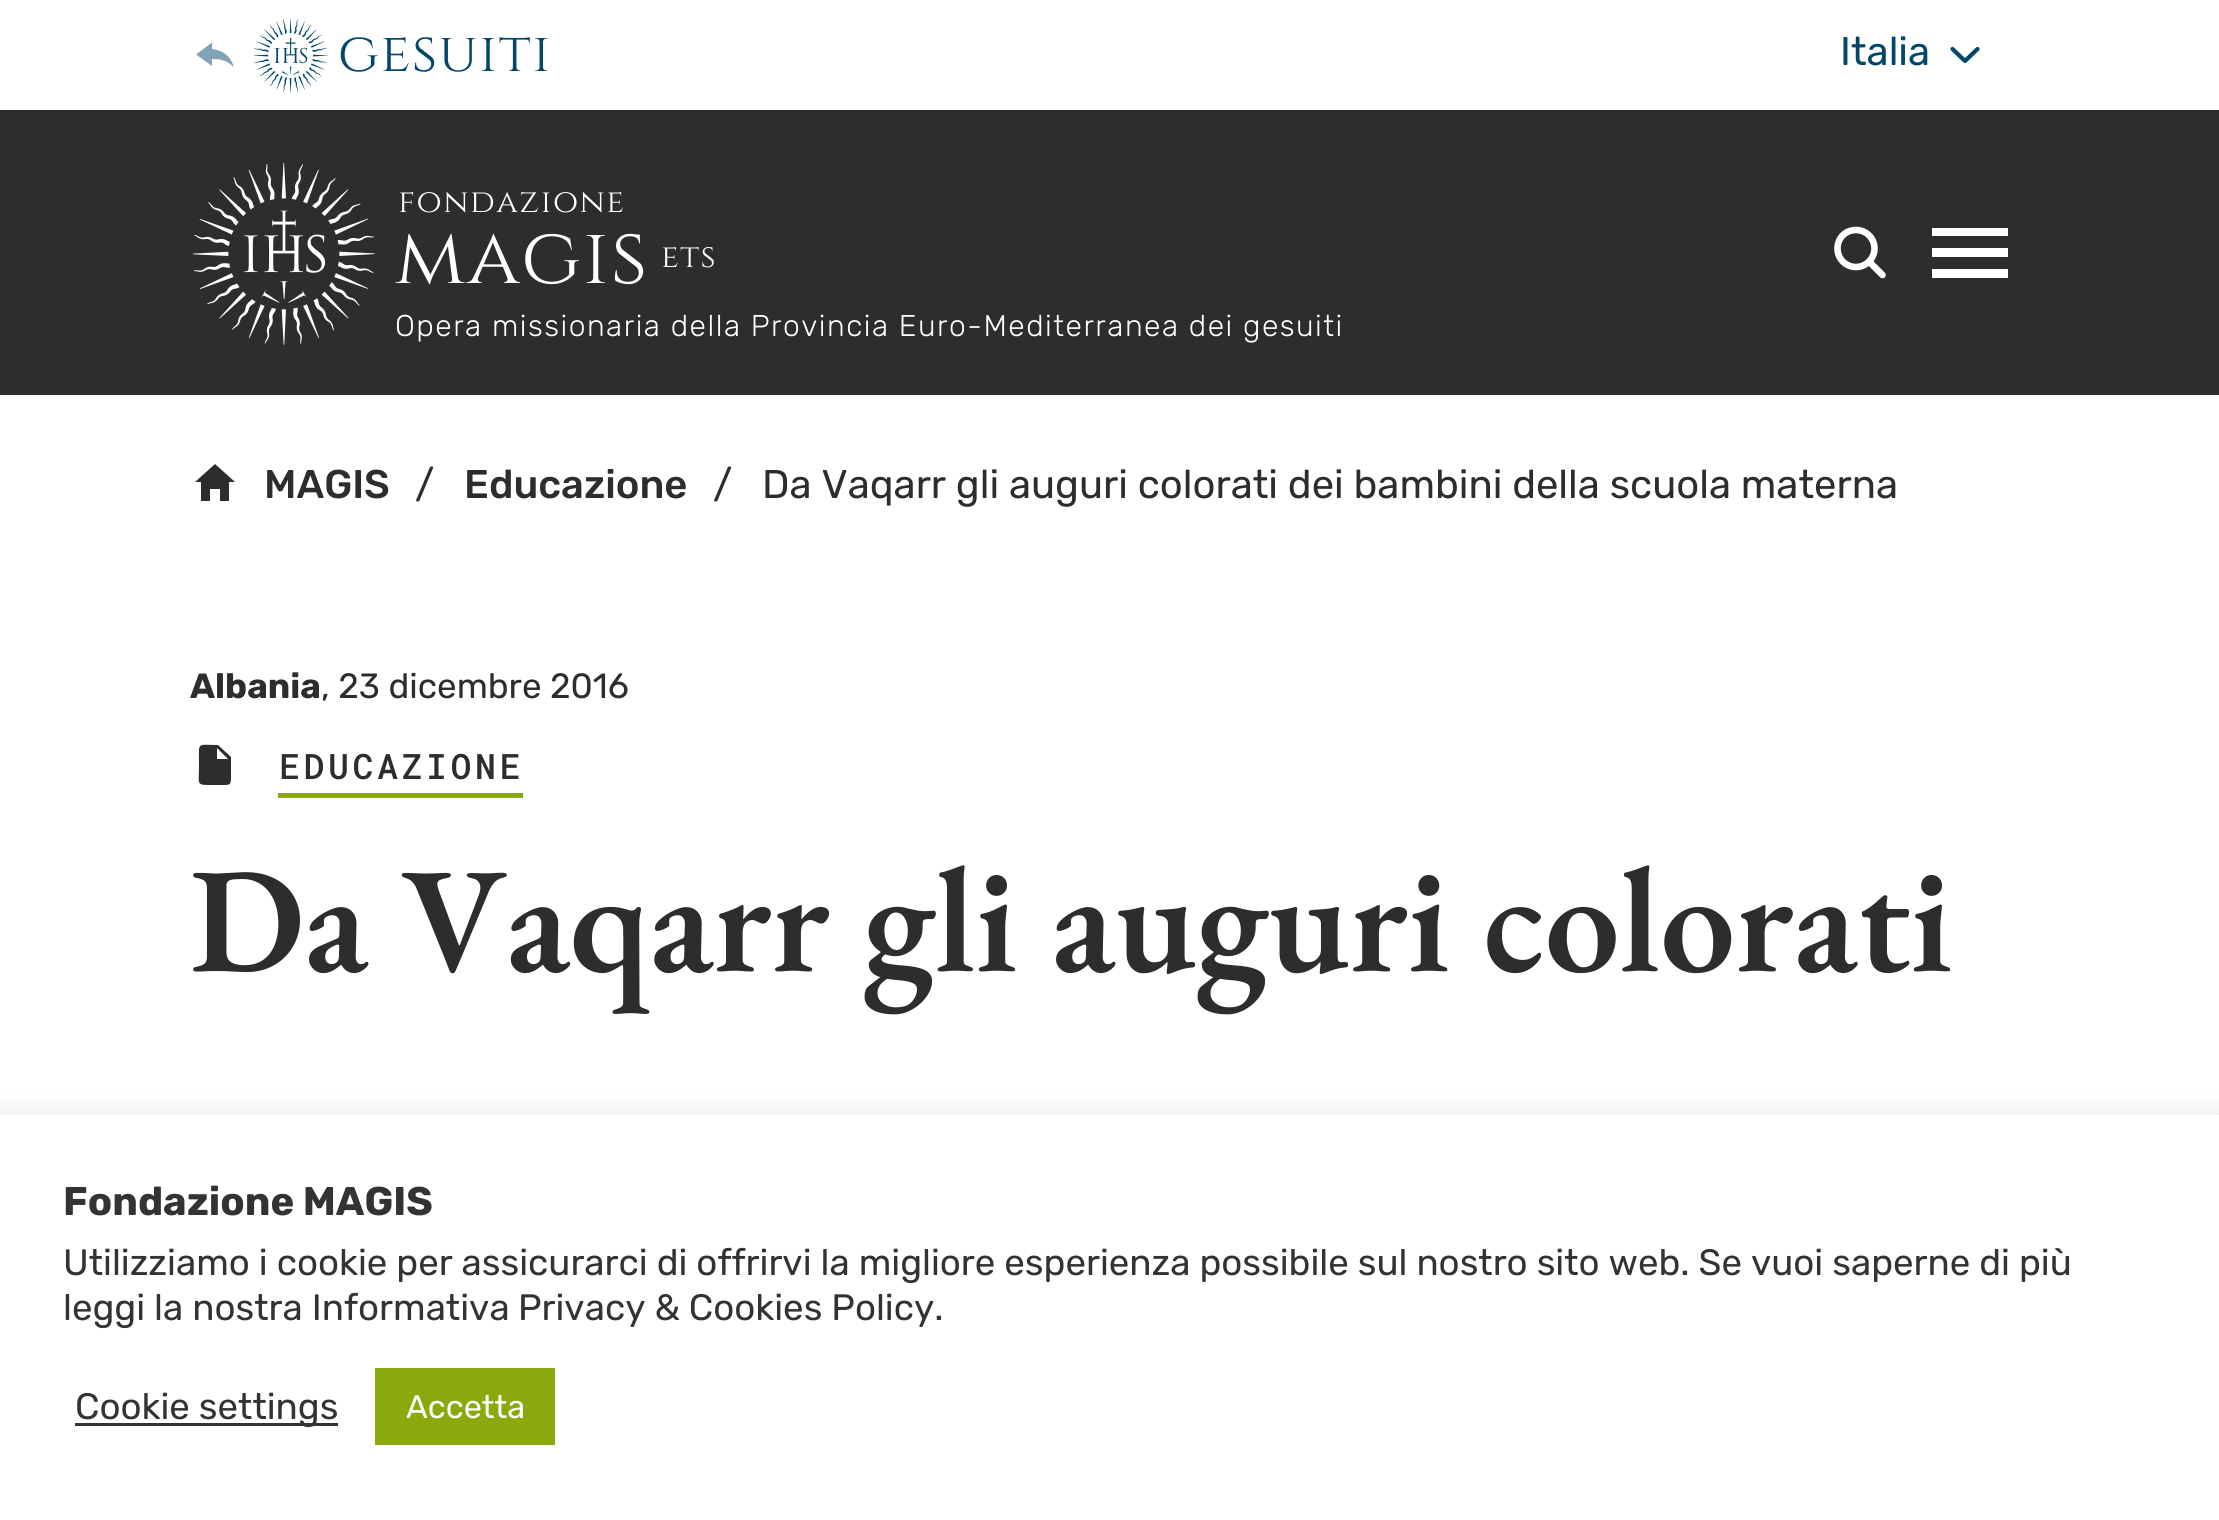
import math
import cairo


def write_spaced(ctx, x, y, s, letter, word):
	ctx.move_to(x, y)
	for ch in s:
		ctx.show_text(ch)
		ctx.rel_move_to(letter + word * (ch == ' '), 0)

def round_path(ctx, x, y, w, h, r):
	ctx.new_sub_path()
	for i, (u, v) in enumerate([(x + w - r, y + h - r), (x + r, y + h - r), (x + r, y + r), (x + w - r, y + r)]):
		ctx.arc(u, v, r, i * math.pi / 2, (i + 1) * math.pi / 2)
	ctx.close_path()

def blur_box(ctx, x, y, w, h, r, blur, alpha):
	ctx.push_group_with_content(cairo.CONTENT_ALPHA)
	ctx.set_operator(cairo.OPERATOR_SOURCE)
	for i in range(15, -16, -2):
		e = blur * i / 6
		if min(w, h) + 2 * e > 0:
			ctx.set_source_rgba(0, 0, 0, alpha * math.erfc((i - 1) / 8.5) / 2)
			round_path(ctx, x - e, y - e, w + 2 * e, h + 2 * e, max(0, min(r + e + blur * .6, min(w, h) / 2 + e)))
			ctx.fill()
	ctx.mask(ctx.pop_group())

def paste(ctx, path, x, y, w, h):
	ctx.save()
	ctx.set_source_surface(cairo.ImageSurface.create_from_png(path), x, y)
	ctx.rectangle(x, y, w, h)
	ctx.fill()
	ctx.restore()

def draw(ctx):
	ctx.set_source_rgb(1, 1, 1)
	ctx.paint()
	ctx.set_source_rgb(0.502, 0.639, 0.71)
	ctx.new_path()
	ctx.move_to(196, 54.5)
	ctx.line_to(212, 42.5)
	ctx.line_to(212, 49)
	ctx.curve_to(226.5, 51, 231.5, 59, 234, 67.5)
	ctx.curve_to(228.5, 61.5, 222.5, 59, 212, 59)
	ctx.line_to(212, 66)
	ctx.close_path()
	ctx.fill()
	paste(ctx, 'media/1.png', 253, 18, 75, 75)
	ctx.select_font_face('Cinzel')
	ctx.set_font_size(55)
	ctx.set_source_rgb(0, 0.278, 0.42)
	write_spaced(ctx, 338, 71, 'gesuiti', 1.5, 0)
	ctx.select_font_face('Rubik')
	ctx.set_font_size(40)
	ctx.move_to(1840, 65)
	ctx.show_text('Italia')
	ctx.new_path()
	ctx.move_to(1952.5, 49)
	ctx.line_to(1965, 61)
	ctx.line_to(1977.5, 49)
	ctx.set_line_width(4.2)
	ctx.set_line_cap(cairo.LINE_CAP_ROUND)
	ctx.set_line_join(cairo.LINE_JOIN_ROUND)
	ctx.stroke()
	ctx.set_source_rgb(0.176, 0.176, 0.176)
	ctx.rectangle(0, 110, 2219, 285)
	ctx.fill()
	paste(ctx, 'media/2.png', 192, 162, 183, 183)
	ctx.select_font_face('Cinzel')
	ctx.set_font_size(32.5)
	ctx.set_source_rgb(1, 1, 1)
	write_spaced(ctx, 398, 212, 'fondazione', 1.5, 0)
	ctx.set_font_size(80)
	write_spaced(ctx, 395, 283, 'magis', 1.5, 0)
	ctx.set_font_size(32.5)
	write_spaced(ctx, 661, 267, 'ets', 1.5, 0)
	ctx.select_font_face('Rubik Light')
	ctx.set_font_size(30)
	write_spaced(ctx, 395, 336, 'Opera missionaria della Provincia Euro-Mediterranea dei gesuiti', 1.5, 0)
	ctx.new_path()
	ctx.move_to(1856, 230)
	ctx.curve_to(1845.5, 230, 1837.5, 238, 1837.5, 248.5)
	ctx.curve_to(1837.5, 258.5, 1845.5, 267, 1856, 267)
	ctx.curve_to(1866, 267, 1874.5, 258.5, 1874.5, 248.5)
	ctx.curve_to(1874.5, 238, 1866, 230, 1856, 230)
	ctx.close_path()
	ctx.set_line_width(6.6)
	ctx.set_line_cap(cairo.LINE_CAP_BUTT)
	ctx.set_line_join(cairo.LINE_JOIN_MITER)
	ctx.stroke()
	ctx.new_path()
	ctx.move_to(1869.5, 262)
	ctx.line_to(1882.5, 275)
	ctx.set_line_cap(cairo.LINE_CAP_ROUND)
	ctx.stroke()
	ctx.new_path()
	ctx.move_to(1932, 278)
	ctx.line_to(2008, 278)
	ctx.line_to(2008, 269)
	ctx.line_to(1932, 269)
	ctx.close_path()
	ctx.move_to(1932, 257)
	ctx.line_to(2008, 257)
	ctx.line_to(2008, 248)
	ctx.line_to(1932, 248)
	ctx.close_path()
	ctx.move_to(1932, 228)
	ctx.line_to(1932, 236)
	ctx.line_to(2008, 236)
	ctx.line_to(2008, 228)
	ctx.close_path()
	ctx.fill()
	ctx.set_source_rgb(0.176, 0.176, 0.176)
	ctx.new_path()
	ctx.move_to(210, 501)
	ctx.line_to(210, 489)
	ctx.line_to(220, 489)
	ctx.line_to(220, 501)
	ctx.line_to(229, 501)
	ctx.line_to(229, 482)
	ctx.line_to(235, 482)
	ctx.line_to(215, 464)
	ctx.line_to(195, 482)
	ctx.line_to(201, 482)
	ctx.line_to(201, 501)
	ctx.close_path()
	ctx.fill()
	ctx.select_font_face('Rubik Medium')
	ctx.set_font_size(40)
	ctx.move_to(264, 498)
	ctx.show_text('MAGIS')
	ctx.select_font_face('Rubik')
	ctx.move_to(415, 498)
	ctx.show_text('/')
	ctx.select_font_face('Rubik Medium')
	ctx.move_to(464, 498)
	ctx.show_text('Educazione')
	ctx.select_font_face('Rubik')
	ctx.move_to(713, 498)
	ctx.show_text('/')
	ctx.move_to(762, 498)
	ctx.show_text('Da Vaqarr gli auguri colorati dei bambini della scuola materna')
	ctx.select_font_face('Rubik', cairo.FONT_SLANT_NORMAL, cairo.FONT_WEIGHT_BOLD)
	ctx.set_font_size(35)
	ctx.move_to(190, 698)
	ctx.show_text('Albania')
	ctx.select_font_face('Rubik')
	ctx.move_to(321, 698)
	ctx.show_text(', 23 dicembre 2016')
	ctx.new_path()
	ctx.move_to(218, 745)
	ctx.curve_to(196, 745, 199, 741, 199, 765)
	ctx.curve_to(199, 786, 195, 785, 215, 785)
	ctx.line_to(223, 785)
	ctx.curve_to(230, 785, 231, 785, 231, 777)
	ctx.line_to(231, 757)
	ctx.close_path()
	ctx.move_to(217, 759)
	ctx.line_to(217, 748)
	ctx.line_to(228, 759)
	ctx.close_path()
	ctx.fill()
	ctx.set_source_rgb(0.537, 0.663, 0.051)
	ctx.rectangle(278, 793, 245, 5)
	ctx.fill()
	ctx.select_font_face('Roboto Mono Medium')
	ctx.set_source_rgb(0.176, 0.176, 0.176)
	write_spaced(ctx, 279, 779, 'EDUCAZIONE', 3.5, 0)
	ctx.select_font_face('EB Garamond SemiBold')
	ctx.set_font_size(150)
	ctx.move_to(190, 971)
	ctx.show_text('Da Vaqarr gli auguri colorati')
	ctx.set_source_rgb(0.675, 0.671, 0.671)
	blur_box(ctx, 0, 1113, 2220, 405, 0, 12.5, 0.3)
	ctx.set_source_rgb(1, 1, 1)
	ctx.rectangle(0, 1115, 2219, 405)
	ctx.fill()
	ctx.select_font_face('Rubik', cairo.FONT_SLANT_NORMAL, cairo.FONT_WEIGHT_BOLD)
	ctx.set_font_size(40)
	ctx.set_source_rgb(0.2, 0.2, 0.2)
	ctx.move_to(63, 1215)
	ctx.show_text('Fondazione MAGIS')
	ctx.select_font_face('Rubik')
	ctx.set_font_size(36.67)
	for x, y, s in [
		(63, 1275, 'Utilizziamo i cookie per assicurarci di offrirvi la migliore esperienza possibile sul nostro sito web. Se vuoi saperne di più'),
		(63, 1320, 'leggi la nostra Informativa'),
		(518, 1320, 'Privacy & Cookies Policy.'),
	]:
		ctx.move_to(x, y)
		ctx.show_text(s)
	ctx.rectangle(75, 1423, 263, 3)
	ctx.fill()
	ctx.move_to(75, 1419)
	ctx.show_text('Cookie settings')
	ctx.set_source_rgb(0.537, 0.663, 0.051)
	ctx.rectangle(375, 1368, 180, 77)
	ctx.fill()
	ctx.set_font_size(32.5)
	ctx.set_source_rgb(1, 1, 1)
	ctx.move_to(406, 1418)
	ctx.show_text('Accetta')


surface = cairo.ImageSurface(cairo.FORMAT_RGB24, 2219, 1520)
ctx = cairo.Context(surface)
options = cairo.FontOptions()
options.set_hint_metrics(cairo.HINT_METRICS_OFF)
options.set_hint_style(cairo.HINT_STYLE_NONE)
ctx.set_font_options(options)
ctx.set_miter_limit(4)
draw(ctx)
surface.write_to_png('image.png')
